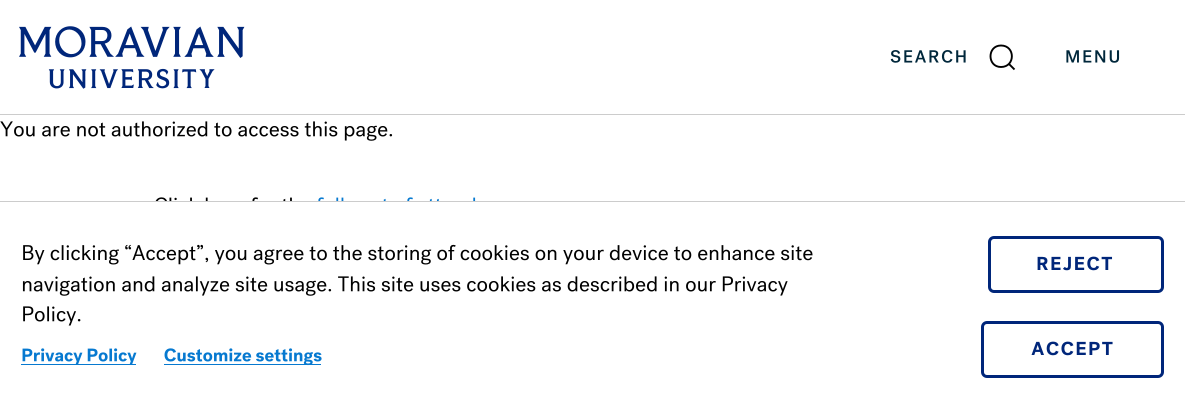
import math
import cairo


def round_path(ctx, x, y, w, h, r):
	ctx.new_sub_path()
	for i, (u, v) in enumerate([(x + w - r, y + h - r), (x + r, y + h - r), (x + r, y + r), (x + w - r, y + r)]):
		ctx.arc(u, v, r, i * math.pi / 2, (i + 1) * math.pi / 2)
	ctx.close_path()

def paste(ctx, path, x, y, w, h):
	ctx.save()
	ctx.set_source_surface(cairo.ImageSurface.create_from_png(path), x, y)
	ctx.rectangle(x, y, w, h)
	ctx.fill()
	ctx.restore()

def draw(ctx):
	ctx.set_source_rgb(1, 1, 1)
	ctx.paint()
	ctx.set_source_rgb(0.8, 0.8, 0.8)
	ctx.rectangle(0, 114, 1185, 1)
	ctx.fill()
	paste(ctx, 'media/1.png', 19, 26, 226, 63)
	paste(ctx, 'media/2.png', 890, 50, 76, 13)
	ctx.new_path()
	ctx.move_to(1001, 67)
	ctx.curve_to(1015.5, 67, 1015.5, 45.5, 1001, 45.5)
	ctx.curve_to(987, 45.5, 987, 67, 1001, 67)
	ctx.close_path()
	ctx.move_to(1014.5, 69.5)
	ctx.line_to(1009, 64)
	ctx.set_source_rgb(0, 0, 0)
	ctx.set_line_width(1.9)
	ctx.set_line_join(cairo.LINE_JOIN_ROUND)
	ctx.stroke()
	paste(ctx, 'media/3.png', 1066, 50, 54, 13)
	paste(ctx, 'media/4.png', 0, 121, 393, 20)
	paste(ctx, 'media/5.png', 155, 197, 137, 4)
	paste(ctx, 'media/6.png', 318, 197, 158, 4)
	ctx.set_source_rgb(0.8, 0.8, 0.8)
	ctx.rectangle(0, 201, 1185, 1)
	ctx.fill()
	paste(ctx, 'media/7.png', 23, 244, 790, 21)
	paste(ctx, 'media/8.png', 22, 276, 766, 20)
	paste(ctx, 'media/9.png', 23, 306, 58, 20)
	paste(ctx, 'media/10.png', 22, 348, 115, 16)
	ctx.set_source_rgb(0.024, 0.475, 0.816)
	ctx.rectangle(21, 364, 115, 1)
	ctx.fill()
	ctx.rectangle(164, 364, 157, 1)
	ctx.fill()
	paste(ctx, 'media/11.png', 164, 348, 158, 18)
	round_path(ctx, 989.5, 237.5, 173, 54, 4.5)
	ctx.set_source_rgb(0, 0.149, 0.478)
	ctx.set_line_width(3)
	ctx.set_line_join(cairo.LINE_JOIN_MITER)
	ctx.stroke()
	paste(ctx, 'media/12.png', 1037, 256, 76, 15)
	round_path(ctx, 982.5, 322.5, 180, 54, 4.5)
	ctx.stroke()
	paste(ctx, 'media/13.png', 1031, 341, 82, 15)


surface = cairo.ImageSurface(cairo.FORMAT_RGB24, 1185, 411)
ctx = cairo.Context(surface)
options = cairo.FontOptions()
options.set_hint_metrics(cairo.HINT_METRICS_OFF)
options.set_hint_style(cairo.HINT_STYLE_NONE)
ctx.set_font_options(options)
ctx.set_miter_limit(4)
draw(ctx)
surface.write_to_png('image.png')
